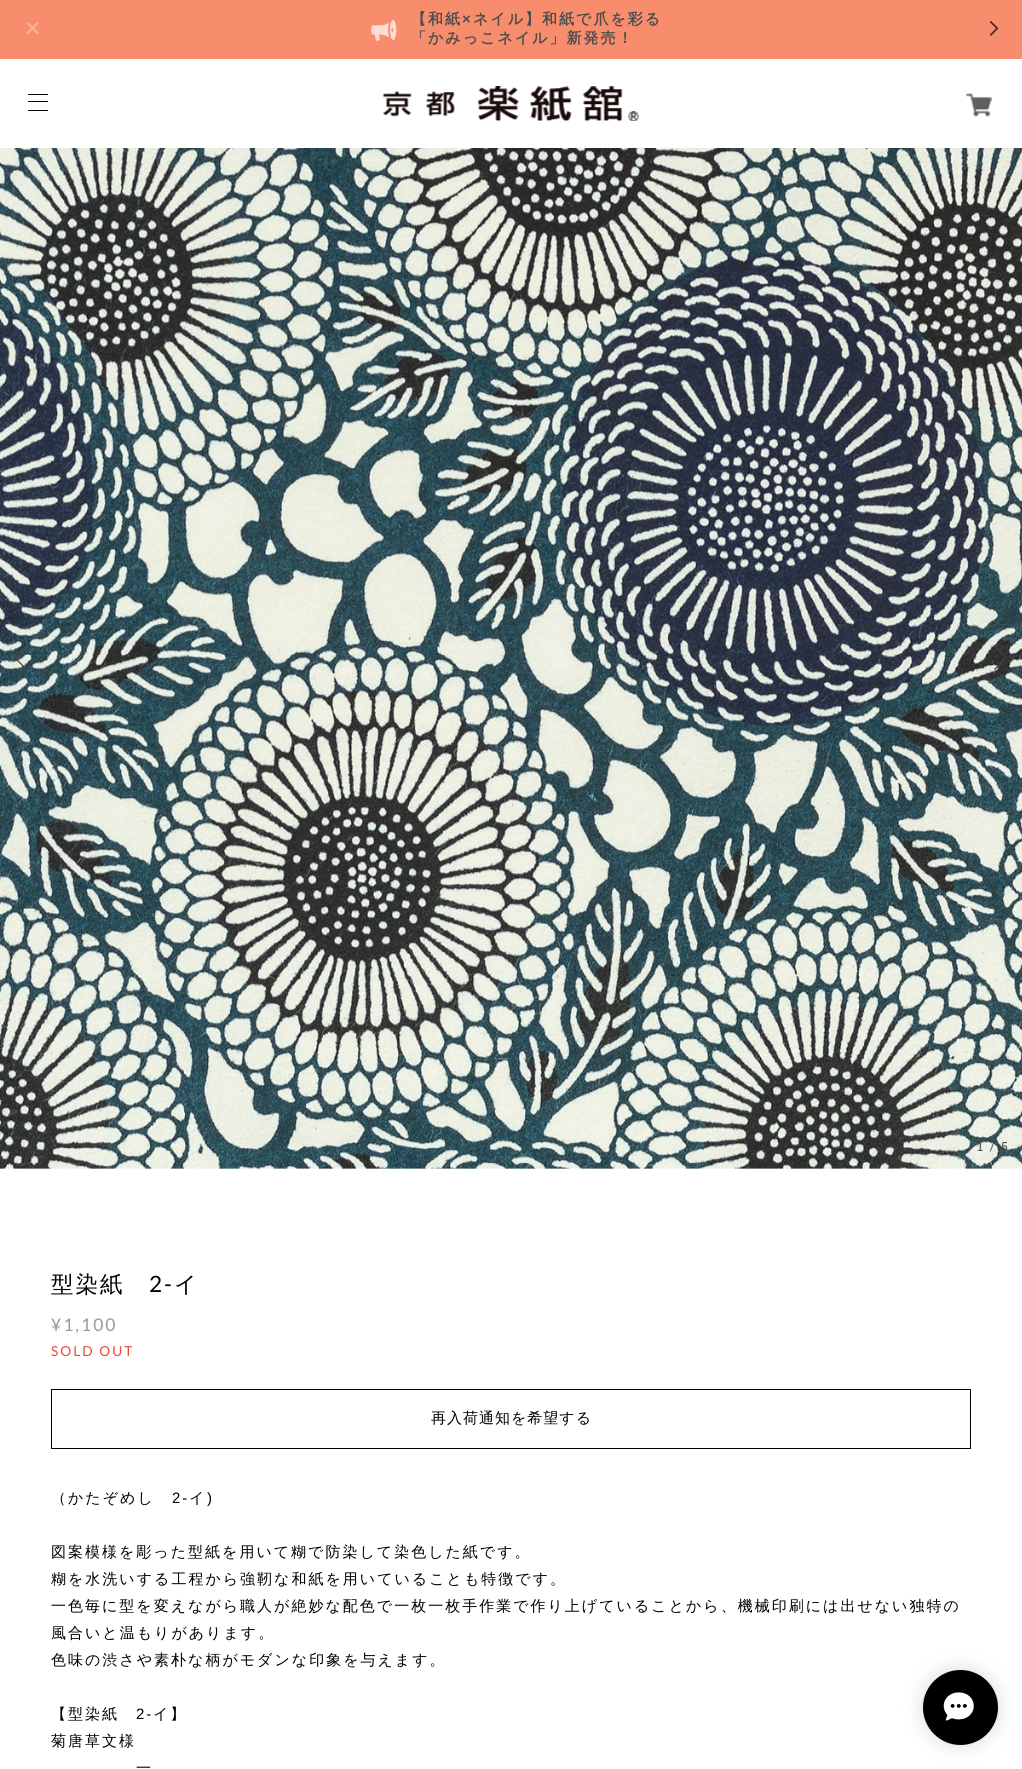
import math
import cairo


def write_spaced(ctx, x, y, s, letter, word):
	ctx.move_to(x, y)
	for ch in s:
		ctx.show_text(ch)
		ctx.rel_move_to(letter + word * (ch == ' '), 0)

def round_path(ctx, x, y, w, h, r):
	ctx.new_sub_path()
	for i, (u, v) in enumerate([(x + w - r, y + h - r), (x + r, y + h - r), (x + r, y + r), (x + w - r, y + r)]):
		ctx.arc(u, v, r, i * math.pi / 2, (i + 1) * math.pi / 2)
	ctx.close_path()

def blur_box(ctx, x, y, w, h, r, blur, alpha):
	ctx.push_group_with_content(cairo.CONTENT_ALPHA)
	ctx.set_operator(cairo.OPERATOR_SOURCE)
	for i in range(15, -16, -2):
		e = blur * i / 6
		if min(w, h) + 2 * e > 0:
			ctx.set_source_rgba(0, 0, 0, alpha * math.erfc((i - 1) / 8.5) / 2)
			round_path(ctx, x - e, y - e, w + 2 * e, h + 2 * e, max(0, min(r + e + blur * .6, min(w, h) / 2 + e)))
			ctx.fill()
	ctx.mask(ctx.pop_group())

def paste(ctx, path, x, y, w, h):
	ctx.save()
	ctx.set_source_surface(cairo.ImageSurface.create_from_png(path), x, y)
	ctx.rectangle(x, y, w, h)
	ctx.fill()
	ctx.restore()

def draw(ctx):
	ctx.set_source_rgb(1, 1, 1)
	ctx.paint()
	ctx.set_source_rgb(0.969, 0.553, 0.427)
	ctx.rectangle(0, 0, 1022, 59)
	ctx.fill()
	paste(ctx, 'media/1.png', 26, 22, 13, 13)
	paste(ctx, 'media/2.png', 371, 19, 26, 22)
	ctx.select_font_face('WenQuanYi Zen Hei', cairo.FONT_SLANT_NORMAL, cairo.FONT_WEIGHT_BOLD)
	ctx.set_font_size(15)
	ctx.set_source_rgb(0.302, 0.302, 0.302)
	write_spaced(ctx, 411, 24, '【和紙', 2, 0)
	ctx.select_font_face('Liberation Sans', cairo.FONT_SLANT_NORMAL, cairo.FONT_WEIGHT_BOLD)
	write_spaced(ctx, 462, 24, '×', 2, 0)
	ctx.select_font_face('WenQuanYi Zen Hei', cairo.FONT_SLANT_NORMAL, cairo.FONT_WEIGHT_BOLD)
	write_spaced(ctx, 473, 24, 'ネイル】和紙で爪を彩る', 2, 0)
	write_spaced(ctx, 411, 43, '「かみっこネイル」新発売！', 2, 0)
	paste(ctx, 'media/3.png', 989, 20, 10, 16)
	ctx.set_source_rgb(0, 0, 0)
	ctx.rectangle(28, 94, 20, 1)
	ctx.rectangle(28, 101, 20, 1)
	ctx.rectangle(28, 110, 20, 1)
	ctx.fill()
	paste(ctx, 'media/4.png', 383, 86, 256, 35)
	paste(ctx, 'media/5.png', 965, 93, 27, 24)
	paste(ctx, 'media/6.png', 0, 148, 1022, 1021)
	ctx.set_source_rgb(0.267, 0.267, 0.267)
	ctx.new_path()
	ctx.move_to(15, 657)
	ctx.line_to(27, 669)
	ctx.line_to(26, 670)
	ctx.line_to(14, 657.5)
	ctx.close_path()
	ctx.fill()
	ctx.new_path()
	ctx.move_to(26, 645.5)
	ctx.line_to(27, 646)
	ctx.line_to(15, 658.5)
	ctx.line_to(14, 657.5)
	ctx.close_path()
	ctx.fill()
	ctx.new_path()
	ctx.move_to(995, 645.5)
	ctx.line_to(1007.5, 657.5)
	ctx.line_to(1006.5, 658.5)
	ctx.line_to(994, 646)
	ctx.close_path()
	ctx.fill()
	ctx.new_path()
	ctx.move_to(1006.5, 657)
	ctx.line_to(1007.5, 657.5)
	ctx.line_to(995, 670)
	ctx.line_to(994, 669)
	ctx.close_path()
	ctx.fill()
	ctx.select_font_face('Lato')
	ctx.set_font_size(12.5)
	write_spaced(ctx, 976, 1151, '1 / 5', 2, 0)
	ctx.select_font_face('WenQuanYi Zen Hei Medium')
	ctx.set_font_size(22.5)
	ctx.set_source_rgb(0, 0, 0)
	write_spaced(ctx, 51, 1292, '型染紙', 2, 0)
	ctx.select_font_face('Lato')
	write_spaced(ctx, 149, 1292, '2-', 2, 0)
	ctx.select_font_face('WenQuanYi Zen Hei Medium')
	write_spaced(ctx, 174, 1292, 'イ', 2, 0)
	ctx.select_font_face('Lato')
	ctx.set_font_size(17.5)
	ctx.set_source_rgb(0.6, 0.6, 0.6)
	write_spaced(ctx, 51, 1331, '¥1,100', 2, 0)
	ctx.set_font_size(13.75)
	ctx.set_source_rgb(0.906, 0.298, 0.235)
	write_spaced(ctx, 51, 1356, 'SOLD OUT', 2, 0)
	ctx.rectangle(51.5, 1389.5, 919, 59)
	ctx.set_source_rgb(0, 0, 0)
	ctx.set_line_width(1)
	ctx.stroke()
	ctx.select_font_face('WenQuanYi Zen Hei Medium')
	ctx.set_font_size(15)
	write_spaced(ctx, 431, 1423, '再入荷通知を希望する', 1, 0)
	write_spaced(ctx, 51, 1503, '（かたぞめし', 2, 0)
	ctx.select_font_face('Liberation Sans')
	write_spaced(ctx, 172, 1503, '2-', 2, 0)
	ctx.select_font_face('WenQuanYi Zen Hei Medium')
	write_spaced(ctx, 189, 1503, 'イ', 2, 0)
	ctx.select_font_face('Liberation Sans')
	write_spaced(ctx, 207, 1503, ')', 2, 0)
	ctx.select_font_face('WenQuanYi Zen Hei Medium')
	for x, y, s in [
		(51, 1557, '図案模様を彫った型紙を用いて糊で防染して染色した紙です。'),
		(51, 1584, '糊を水洗いする工程から強靭な和紙を用いていることも特徴です。'),
		(51, 1611, '一色毎に型を変えながら職人が絶妙な配色で一枚一枚手作業で作り上げていることから、機械印刷には出せない独特の'),
		(51, 1638, '風合いと温もりがあります。'),
		(51, 1665, '色味の渋さや素朴な柄がモダンな印象を与えます。'),
		(51, 1719, '【型染紙'),
	]:
		write_spaced(ctx, x, y, s, 2, 0)
	ctx.select_font_face('Liberation Sans')
	write_spaced(ctx, 136, 1719, '2-', 2, 0)
	ctx.select_font_face('WenQuanYi Zen Hei Medium')
	for x, y, s in [
		(153, 1719, 'イ】'),
		(51, 1746, '菊唐草文様'),
		(136, 1773, '一'),
	]:
		write_spaced(ctx, x, y, s, 2, 0)
	ctx.set_source_rgb(0.2, 0.259, 0.345)
	blur_box(ctx, 923, 1670, 75, 75, 37.5, 9.5, 0.2)
	ctx.set_source_rgb(0, 0, 0)
	ctx.arc(960.5, 1707.5, 37.5, 0, 2 * math.pi)
	ctx.fill()
	paste(ctx, 'media/7.png', 943, 1692, 31, 29)


surface = cairo.ImageSurface(cairo.FORMAT_RGB24, 1022, 1769)
ctx = cairo.Context(surface)
options = cairo.FontOptions()
options.set_hint_metrics(cairo.HINT_METRICS_OFF)
options.set_hint_style(cairo.HINT_STYLE_NONE)
ctx.set_font_options(options)
ctx.set_miter_limit(4)
draw(ctx)
surface.write_to_png('image.png')
